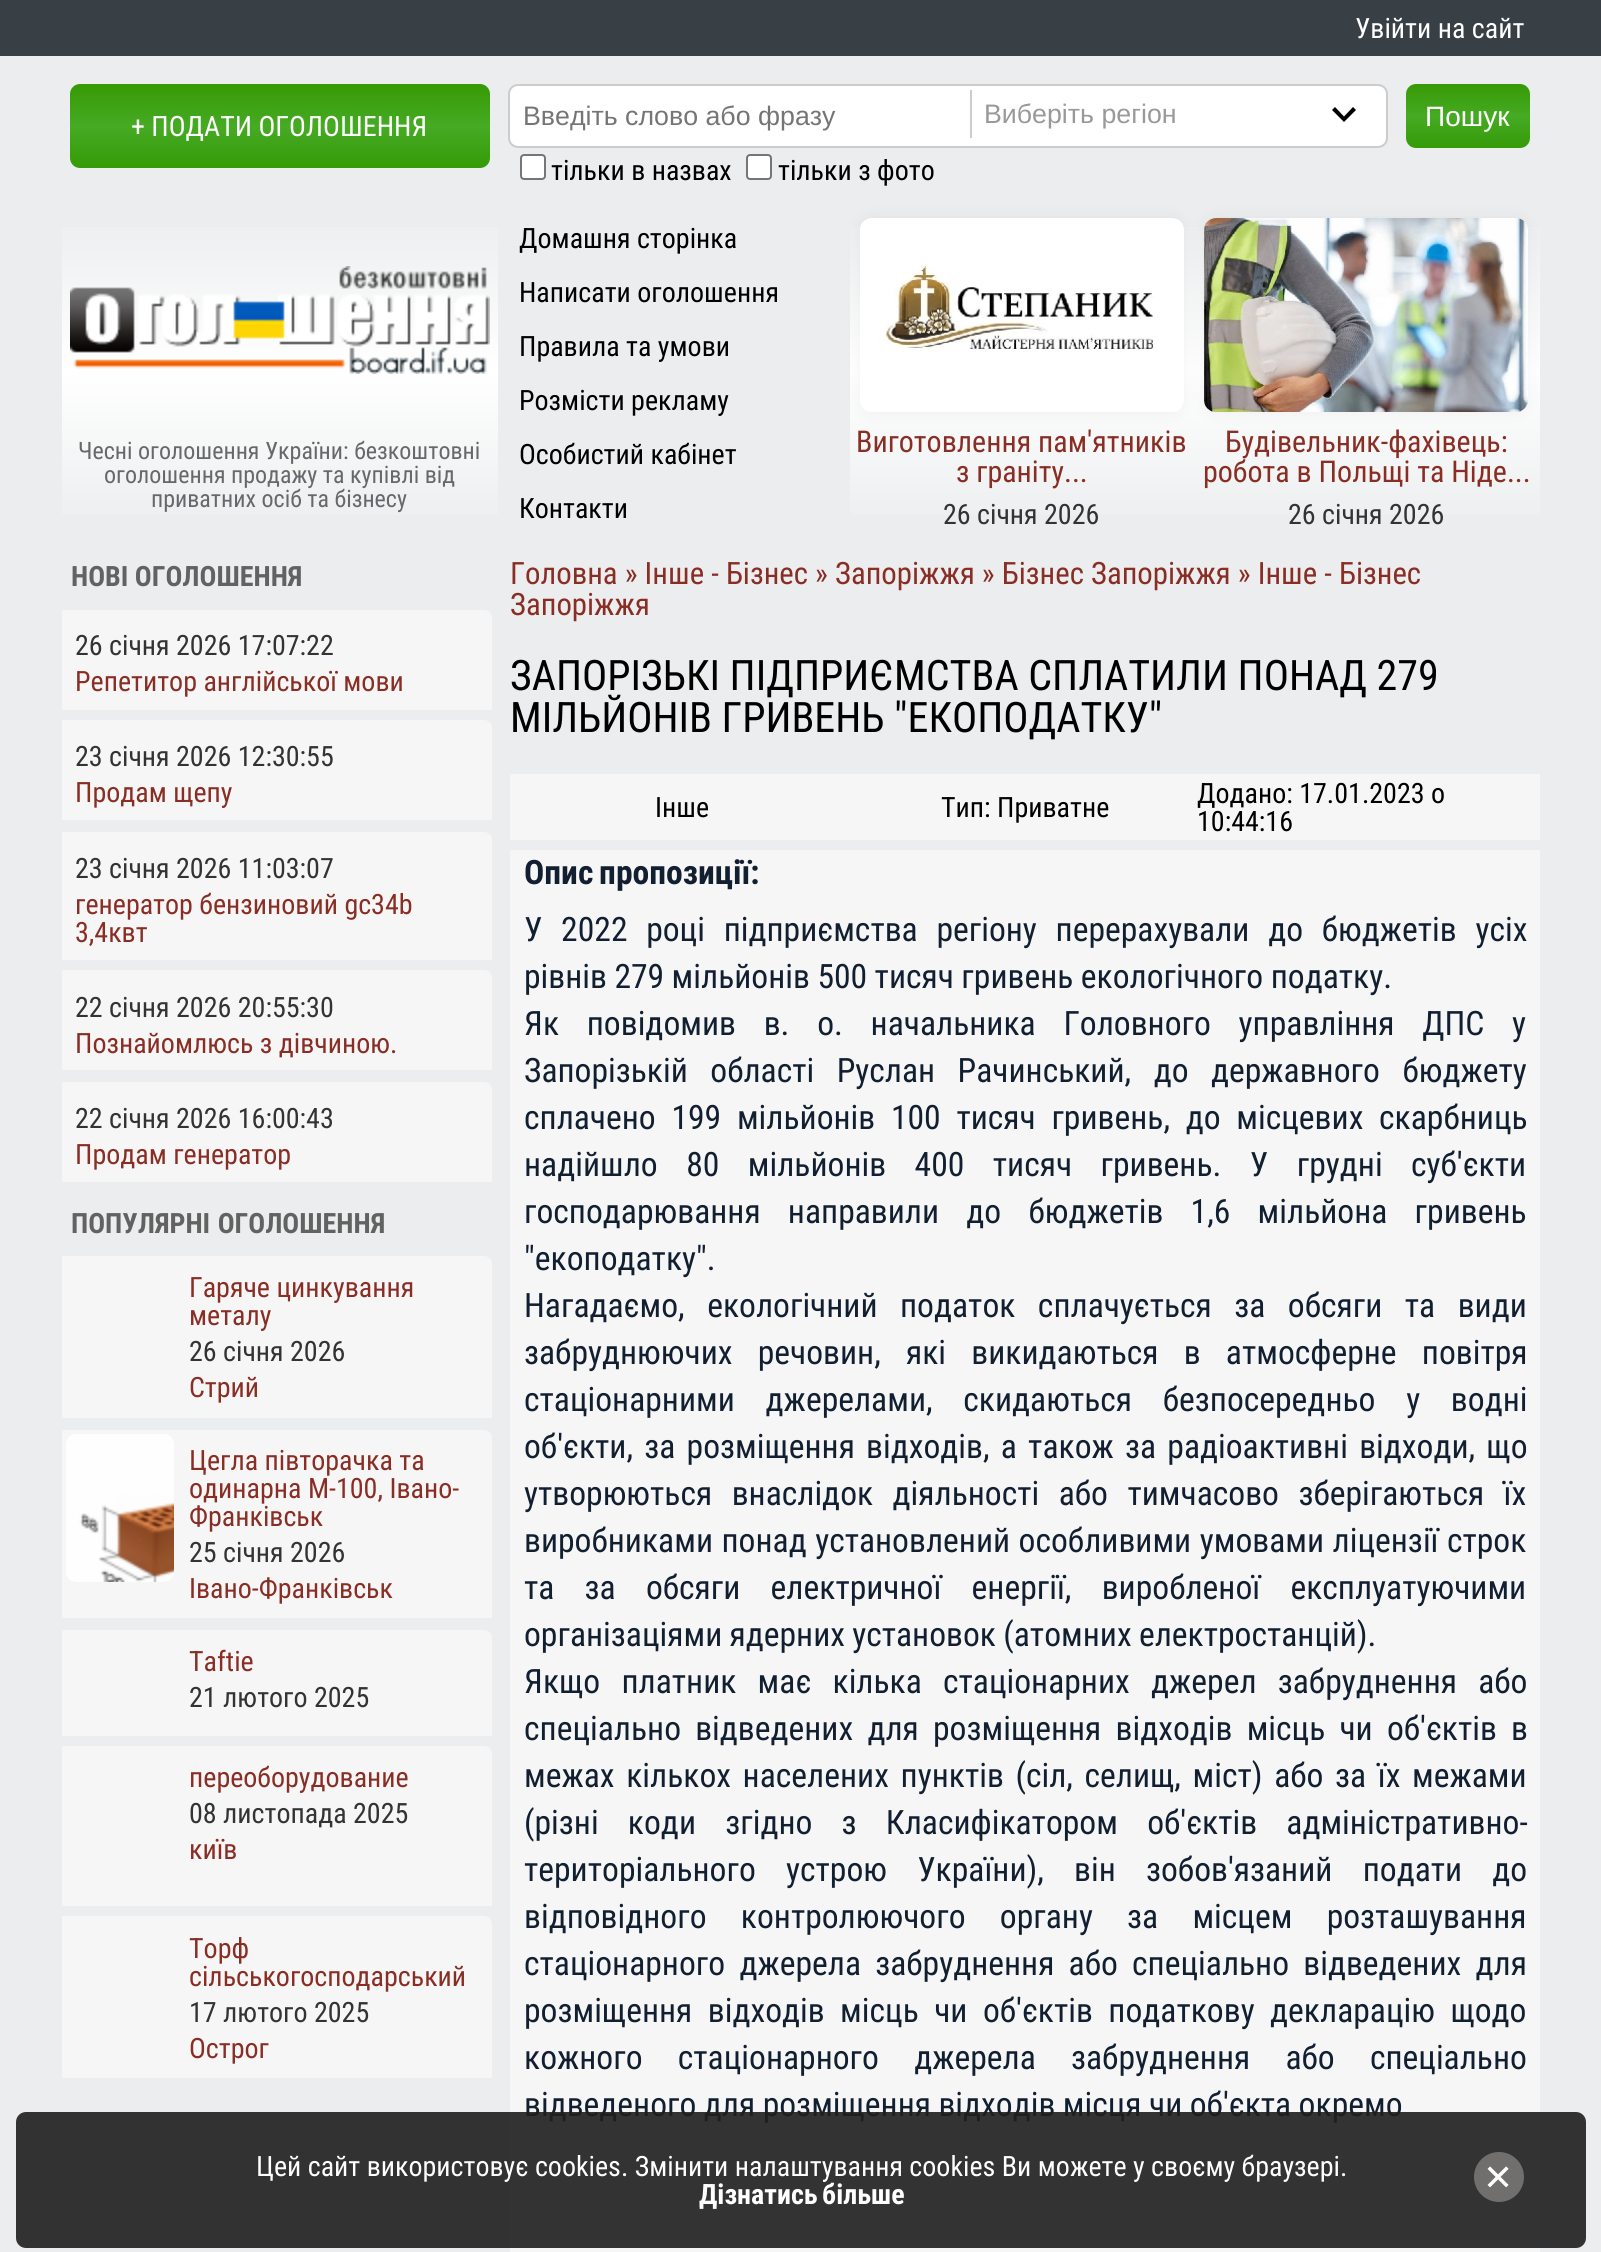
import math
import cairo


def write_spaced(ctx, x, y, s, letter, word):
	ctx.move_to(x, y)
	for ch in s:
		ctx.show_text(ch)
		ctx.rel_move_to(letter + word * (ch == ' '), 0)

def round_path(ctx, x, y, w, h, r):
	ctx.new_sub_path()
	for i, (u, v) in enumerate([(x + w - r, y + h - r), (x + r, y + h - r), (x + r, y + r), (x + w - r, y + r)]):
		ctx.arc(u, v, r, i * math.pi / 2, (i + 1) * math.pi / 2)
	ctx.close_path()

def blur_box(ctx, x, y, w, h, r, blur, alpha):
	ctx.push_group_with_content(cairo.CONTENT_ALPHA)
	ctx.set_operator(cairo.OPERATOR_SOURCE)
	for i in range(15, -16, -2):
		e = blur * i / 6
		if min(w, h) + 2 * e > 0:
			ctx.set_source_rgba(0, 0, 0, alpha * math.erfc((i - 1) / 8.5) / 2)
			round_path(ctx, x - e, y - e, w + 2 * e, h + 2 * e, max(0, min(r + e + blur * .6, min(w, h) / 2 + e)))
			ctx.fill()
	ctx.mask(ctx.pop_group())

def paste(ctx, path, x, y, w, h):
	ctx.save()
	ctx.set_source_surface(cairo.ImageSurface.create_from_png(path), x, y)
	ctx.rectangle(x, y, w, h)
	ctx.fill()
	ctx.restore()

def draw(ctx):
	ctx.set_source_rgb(0.922, 0.929, 0.933)
	ctx.paint()
	ctx.set_source_rgb(0.22, 0.247, 0.271)
	ctx.rectangle(0, 0, 1601, 56)
	ctx.fill()
	ctx.select_font_face('Roboto Condensed')
	ctx.set_font_size(28)
	ctx.set_source_rgb(1, 1, 1)
	ctx.move_to(1355, 38)
	ctx.show_text('Увійти на сайт')
	gradient = cairo.LinearGradient(280, 84, 280, 168)
	gradient.add_color_stop_rgba(0, 0.212, 0.604, 0.016, 1)
	gradient.add_color_stop_rgba(0.5, 0.275, 0.667, 0.141, 1)
	gradient.add_color_stop_rgba(1, 0.208, 0.608, 0.027, 1)
	ctx.set_source(gradient)
	round_path(ctx, 70, 84, 420, 84, 10)
	ctx.fill()
	ctx.set_source_rgb(1, 1, 1)
	ctx.move_to(131, 136)
	ctx.show_text('+ ПОДАТИ ОГОЛОШЕННЯ')
	round_path(ctx, 509, 85, 878, 62, 9)
	ctx.fill_preserve()
	ctx.set_source_rgb(0.8, 0.8, 0.8)
	ctx.stroke()
	ctx.select_font_face('Liberation Sans')
	ctx.set_font_size(26.75)
	ctx.set_source_rgb(0.459, 0.459, 0.459)
	ctx.move_to(523, 125)
	ctx.show_text('Введіть слово або фразу')
	ctx.set_source_rgb(0, 0, 0)
	ctx.new_path()
	ctx.move_to(1353, 107)
	ctx.line_to(1344, 116.5)
	ctx.line_to(1335, 107)
	ctx.line_to(1332, 110)
	ctx.line_to(1344, 122)
	ctx.line_to(1356, 110)
	ctx.close_path()
	ctx.fill()
	ctx.set_source_rgb(0.8, 0.8, 0.8)
	ctx.rectangle(970, 90, 2, 48)
	ctx.fill()
	ctx.set_source_rgb(0.6, 0.6, 0.6)
	ctx.move_to(984, 123)
	ctx.show_text('Виберіть регіон')
	gradient = cairo.LinearGradient(1468, 84, 1468, 148)
	gradient.add_color_stop_rgba(0, 0.212, 0.604, 0.016, 1)
	gradient.add_color_stop_rgba(0.5, 0.275, 0.667, 0.141, 1)
	gradient.add_color_stop_rgba(1, 0.208, 0.608, 0.027, 1)
	ctx.set_source(gradient)
	round_path(ctx, 1406, 84, 124, 64, 10)
	ctx.fill()
	ctx.set_font_size(28)
	ctx.set_source_rgb(1, 1, 1)
	ctx.move_to(1425, 126)
	ctx.show_text('Пошук')
	round_path(ctx, 521, 155, 24, 24, 3)
	ctx.fill_preserve()
	ctx.set_source_rgb(0.463, 0.463, 0.463)
	ctx.stroke()
	ctx.select_font_face('Roboto Condensed')
	ctx.set_source_rgb(0, 0, 0)
	ctx.move_to(551, 180)
	ctx.show_text('тільки в назвах')
	ctx.set_source_rgb(1, 1, 1)
	round_path(ctx, 747, 155, 24, 24, 3)
	ctx.fill_preserve()
	ctx.set_source_rgb(0.463, 0.463, 0.463)
	ctx.stroke()
	ctx.set_source_rgb(0, 0, 0)
	ctx.move_to(778, 180)
	ctx.show_text('тільки з фото')
	gradient = cairo.LinearGradient(280, 206, 280, 536)
	gradient.add_color_stop_rgba(0, 0.922, 0.929, 0.933, 1)
	gradient.add_color_stop_rgba(0.5, 1, 1, 1, 1)
	gradient.add_color_stop_rgba(1, 0.922, 0.929, 0.933, 1)
	ctx.set_source(gradient)
	ctx.rectangle(62, 227, 436, 288)
	ctx.fill()
	paste(ctx, 'media/1.png', 70, 266, 420, 108)
	ctx.set_font_size(24)
	ctx.set_source_rgb(0.396, 0.412, 0.42)
	for x, y, s in [
		(78, 459, 'Чесні оголошення України: безкоштовні'),
		(104, 483, 'оголошення продажу та купівлі від'),
		(151, 507, 'приватних осіб та бізнесу'),
	]:
		ctx.move_to(x, y)
		ctx.show_text(s)
	ctx.set_font_size(28)
	ctx.set_source_rgb(0, 0, 0)
	for x, y, s in [
		(519, 248, 'Домашня сторінка'),
		(519, 302, 'Написати оголошення'),
		(519, 356, 'Правила та умови'),
		(519, 410, 'Розмісти рекламу'),
		(519, 464, 'Особистий кабінет'),
		(519, 518, 'Контакти'),
	]:
		ctx.move_to(x, y)
		ctx.show_text(s)
	gradient = cairo.LinearGradient(1195, 206, 1195, 536)
	gradient.add_color_stop_rgba(0, 0.922, 0.929, 0.933, 1)
	gradient.add_color_stop_rgba(0.5, 1, 1, 1, 1)
	gradient.add_color_stop_rgba(1, 0.922, 0.929, 0.933, 1)
	ctx.set_source(gradient)
	ctx.rectangle(850, 227, 690, 288)
	ctx.fill()
	ctx.set_source_rgb(0, 0, 0)
	blur_box(ctx, 860, 218, 324, 194, 12, 8, 0.05)
	paste(ctx, 'media/2.png', 860, 218, 324, 194)
	ctx.set_font_size(30)
	ctx.set_source_rgb(0.537, 0.18, 0.145)
	ctx.move_to(856, 452)
	ctx.show_text('Виготовлення пам\'ятників')
	ctx.move_to(956, 482)
	ctx.show_text('з граніту...')
	ctx.set_font_size(28)
	ctx.set_source_rgb(0.2, 0.2, 0.2)
	ctx.move_to(943, 524)
	ctx.show_text('26 січня 2026')
	ctx.set_source_rgb(0, 0, 0)
	blur_box(ctx, 1204, 218, 324, 194, 12, 8, 0.05)
	paste(ctx, 'media/3.png', 1204, 218, 324, 194)
	ctx.set_font_size(30)
	ctx.set_source_rgb(0.537, 0.18, 0.145)
	ctx.move_to(1225, 452)
	ctx.show_text('Будівельник-фахівець:')
	ctx.move_to(1203, 482)
	ctx.show_text('робота в Польщі та Ніде...')
	ctx.set_font_size(28)
	ctx.set_source_rgb(0.2, 0.2, 0.2)
	ctx.move_to(1288, 524)
	ctx.show_text('26 січня 2026')
	ctx.select_font_face('Roboto Condensed', cairo.FONT_SLANT_NORMAL, cairo.FONT_WEIGHT_BOLD)
	ctx.set_source_rgb(0.384, 0.384, 0.384)
	ctx.move_to(71, 586)
	ctx.show_text('НОВІ ОГОЛОШЕННЯ')
	ctx.set_source_rgb(0.961, 0.961, 0.961)
	ctx.new_path()
	ctx.move_to(62, 610)
	ctx.line_to(484, 610)
	ctx.curve_to(488.5, 610, 492, 613.5, 492, 618)
	ctx.line_to(492, 710)
	ctx.line_to(62, 710)
	ctx.close_path()
	ctx.fill()
	ctx.select_font_face('Roboto Condensed')
	ctx.set_source_rgb(0.2, 0.2, 0.2)
	ctx.move_to(75, 655)
	ctx.show_text('26 січня 2026 17:07:22')
	ctx.set_source_rgb(0.537, 0.18, 0.145)
	ctx.move_to(75, 691)
	ctx.show_text('Репетитор англійської мови')
	ctx.set_source_rgb(0.961, 0.961, 0.961)
	ctx.new_path()
	ctx.move_to(62, 720)
	ctx.line_to(484, 720)
	ctx.curve_to(488.5, 720, 492, 723.5, 492, 728)
	ctx.line_to(492, 820)
	ctx.line_to(62, 820)
	ctx.close_path()
	ctx.fill()
	ctx.set_source_rgb(0.2, 0.2, 0.2)
	ctx.move_to(75, 766)
	ctx.show_text('23 січня 2026 12:30:55')
	ctx.set_source_rgb(0.537, 0.18, 0.145)
	ctx.move_to(75, 802)
	ctx.show_text('Продам щепу')
	ctx.set_source_rgb(0.961, 0.961, 0.961)
	ctx.new_path()
	ctx.move_to(62, 832)
	ctx.line_to(484, 832)
	ctx.curve_to(488.5, 832, 492, 835.5, 492, 840)
	ctx.line_to(492, 960)
	ctx.line_to(62, 960)
	ctx.close_path()
	ctx.fill()
	ctx.set_source_rgb(0.2, 0.2, 0.2)
	ctx.move_to(75, 878)
	ctx.show_text('23 січня 2026 11:03:07')
	ctx.set_source_rgb(0.537, 0.18, 0.145)
	ctx.move_to(75, 914)
	ctx.show_text('генератор бензиновий gc34b')
	ctx.move_to(75, 942)
	ctx.show_text('3,4квт')
	ctx.set_source_rgb(0.961, 0.961, 0.961)
	ctx.new_path()
	ctx.move_to(62, 970)
	ctx.line_to(484, 970)
	ctx.curve_to(488.5, 970, 492, 973.5, 492, 978)
	ctx.line_to(492, 1070)
	ctx.line_to(62, 1070)
	ctx.close_path()
	ctx.fill()
	ctx.set_source_rgb(0.2, 0.2, 0.2)
	ctx.move_to(75, 1017)
	ctx.show_text('22 січня 2026 20:55:30')
	ctx.set_source_rgb(0.537, 0.18, 0.145)
	ctx.move_to(75, 1053)
	ctx.show_text('Познайомлюсь з дівчиною.')
	ctx.set_source_rgb(0.961, 0.961, 0.961)
	ctx.new_path()
	ctx.move_to(62, 1082)
	ctx.line_to(484, 1082)
	ctx.curve_to(488.5, 1082, 492, 1085.5, 492, 1090)
	ctx.line_to(492, 1182)
	ctx.line_to(62, 1182)
	ctx.close_path()
	ctx.fill()
	ctx.set_source_rgb(0.2, 0.2, 0.2)
	ctx.move_to(75, 1128)
	ctx.show_text('22 січня 2026 16:00:43')
	ctx.set_source_rgb(0.537, 0.18, 0.145)
	ctx.move_to(75, 1164)
	ctx.show_text('Продам генератор')
	ctx.select_font_face('Roboto Condensed', cairo.FONT_SLANT_NORMAL, cairo.FONT_WEIGHT_BOLD)
	ctx.set_source_rgb(0.384, 0.384, 0.384)
	write_spaced(ctx, 71, 1233, 'ПОПУЛЯРНІ ОГОЛОШЕННЯ', 0, 1)
	ctx.set_source_rgb(0.961, 0.961, 0.961)
	ctx.new_path()
	ctx.move_to(62, 1256)
	ctx.line_to(484, 1256)
	ctx.curve_to(488.5, 1256, 492, 1259.5, 492, 1264)
	ctx.line_to(492, 1418)
	ctx.line_to(62, 1418)
	ctx.close_path()
	ctx.fill()
	ctx.select_font_face('Roboto Condensed')
	ctx.set_source_rgb(0.537, 0.18, 0.145)
	ctx.move_to(189, 1297)
	ctx.show_text('Гаряче цинкування')
	ctx.move_to(189, 1325)
	ctx.show_text('металу')
	ctx.set_source_rgb(0.2, 0.2, 0.2)
	ctx.move_to(189, 1361)
	ctx.show_text('26 січня 2026')
	ctx.set_source_rgb(0.537, 0.18, 0.145)
	ctx.move_to(189, 1397)
	ctx.show_text('Стрий')
	ctx.set_source_rgb(0.961, 0.961, 0.961)
	ctx.new_path()
	ctx.move_to(62, 1430)
	ctx.line_to(484, 1430)
	ctx.curve_to(488.5, 1430, 492, 1433.5, 492, 1438)
	ctx.line_to(492, 1618)
	ctx.line_to(62, 1618)
	ctx.close_path()
	ctx.fill()
	paste(ctx, 'media/4.png', 66, 1434, 108, 148)
	ctx.set_source_rgb(0.537, 0.18, 0.145)
	for x, y, s in [
		(189, 1470, 'Цегла півторачка та'),
		(189, 1498, 'одинарна М-100, Івано-'),
		(189, 1526, 'Франківськ'),
	]:
		ctx.move_to(x, y)
		ctx.show_text(s)
	ctx.set_source_rgb(0.2, 0.2, 0.2)
	ctx.move_to(189, 1562)
	ctx.show_text('25 січня 2026')
	ctx.set_source_rgb(0.537, 0.18, 0.145)
	ctx.move_to(189, 1598)
	ctx.show_text('Івано-Франківськ')
	ctx.set_source_rgb(0.961, 0.961, 0.961)
	ctx.new_path()
	ctx.move_to(62, 1630)
	ctx.line_to(484, 1630)
	ctx.curve_to(488.5, 1630, 492, 1633.5, 492, 1638)
	ctx.line_to(492, 1736)
	ctx.line_to(62, 1736)
	ctx.close_path()
	ctx.fill()
	ctx.set_source_rgb(0.537, 0.18, 0.145)
	ctx.move_to(189, 1671)
	ctx.show_text('Taftie')
	ctx.set_source_rgb(0.2, 0.2, 0.2)
	ctx.move_to(189, 1707)
	ctx.show_text('21 лютого 2025')
	ctx.set_source_rgb(0.961, 0.961, 0.961)
	ctx.new_path()
	ctx.move_to(62, 1746)
	ctx.line_to(484, 1746)
	ctx.curve_to(488.5, 1746, 492, 1749.5, 492, 1754)
	ctx.line_to(492, 1906)
	ctx.line_to(62, 1906)
	ctx.close_path()
	ctx.fill()
	ctx.set_source_rgb(0.537, 0.18, 0.145)
	ctx.move_to(189, 1787)
	ctx.show_text('переоборудование')
	ctx.set_source_rgb(0.2, 0.2, 0.2)
	ctx.move_to(189, 1823)
	ctx.show_text('08 листопада 2025')
	ctx.set_source_rgb(0.537, 0.18, 0.145)
	ctx.move_to(189, 1859)
	ctx.show_text('київ')
	ctx.set_source_rgb(0.961, 0.961, 0.961)
	ctx.new_path()
	ctx.move_to(62, 1916)
	ctx.line_to(484, 1916)
	ctx.curve_to(488.5, 1916, 492, 1919.5, 492, 1924)
	ctx.line_to(492, 2078)
	ctx.line_to(62, 2078)
	ctx.close_path()
	ctx.fill()
	ctx.set_source_rgb(0.537, 0.18, 0.145)
	ctx.move_to(189, 1958)
	ctx.show_text('Торф')
	ctx.move_to(189, 1986)
	ctx.show_text('сільськогосподарський')
	ctx.set_source_rgb(0.2, 0.2, 0.2)
	ctx.move_to(189, 2022)
	ctx.show_text('17 лютого 2025')
	ctx.set_source_rgb(0.537, 0.18, 0.145)
	ctx.move_to(189, 2058)
	ctx.show_text('Острог')
	ctx.set_font_size(30.8)
	ctx.move_to(510, 584)
	ctx.show_text('Головна » Інше - Бізнес » Запоріжжя » Бізнес Запоріжжя » Інше - Бізнес')
	ctx.move_to(510, 615)
	ctx.show_text('Запоріжжя')
	ctx.set_font_size(42)
	ctx.set_source_rgb(0, 0, 0)
	ctx.move_to(510, 690)
	ctx.show_text('ЗАПОРІЗЬКІ ПІДПРИЄМСТВА СПЛАТИЛИ ПОНАД 279')
	ctx.move_to(510, 732)
	ctx.show_text('МІЛЬЙОНІВ ГРИВЕНЬ "ЕКОПОДАТКУ"')
	ctx.set_source_rgb(0.961, 0.961, 0.961)
	ctx.rectangle(510, 774, 1030, 1478)
	ctx.fill()
	ctx.set_source_rgb(0.922, 0.929, 0.933)
	ctx.rectangle(510, 840, 1030, 10)
	ctx.fill()
	ctx.set_font_size(28)
	ctx.set_source_rgb(0, 0, 0)
	for x, y, s in [
		(655, 817, 'Інше'),
		(941, 817, 'Тип: Приватне'),
		(1197, 803, 'Додано: 17.01.2023 о'),
		(1197, 831, '10:44:16'),
	]:
		ctx.move_to(x, y)
		ctx.show_text(s)
	ctx.select_font_face('Roboto Condensed', cairo.FONT_SLANT_NORMAL, cairo.FONT_WEIGHT_BOLD)
	ctx.set_font_size(33.6)
	ctx.set_source_rgb(0.071, 0.122, 0.192)
	write_spaced(ctx, 524, 884, 'Опис пропозиції:', 0, -2)
	ctx.select_font_face('Roboto Condensed')
	write_spaced(ctx, 524, 941, 'У 2022 році підприємства регіону перерахували до бюджетів усіх', 0, 11)
	write_spaced(ctx, 524, 988, 'рівнів 279 мільйонів 500 тисяч гривень екологічного податку.', 0, -0.25)
	write_spaced(ctx, 524, 1035, 'Як повідомив в. о. начальника Головного управління ДПС у', 0, 20)
	write_spaced(ctx, 524, 1082, 'Запорізькій області Руслан Рачинський, до державного бюджету', 0, 14.75)
	write_spaced(ctx, 524, 1129, 'сплачено 199 мільйонів 100 тисяч гривень, до місцевих скарбниць', 0, 8)
	write_spaced(ctx, 524, 1176, 'надійшло 80 мільйонів 400 тисяч гривень. У грудні суб\'єкти', 0, 20.75)
	write_spaced(ctx, 524, 1223, 'господарювання направили до бюджетів 1,6 мільйона гривень', 0, 19.5)
	ctx.move_to(524, 1270)
	ctx.show_text('"екоподатку".')
	write_spaced(ctx, 524, 1317, 'Нагадаємо, екологічний податок сплачується за обсяги та види', 0, 14.75)
	write_spaced(ctx, 524, 1364, 'забруднюючих речовин, які викидаються в атмосферне повітря', 0, 17.5)
	write_spaced(ctx, 524, 1411, 'стаціонарними джерелами, скидаються безпосередньо у водні', 0, 23)
	write_spaced(ctx, 524, 1458, 'об\'єкти, за розміщення відходів, а також за радіоактивні відходи, що', 0, 3.5)
	write_spaced(ctx, 524, 1505, 'утворюються внаслідок діяльності або тимчасово зберігаються їх', 0, 11.75)
	write_spaced(ctx, 524, 1552, 'виробниками понад установлений особливими умовами ліцензії строк', 0, 0.75)
	write_spaced(ctx, 524, 1599, 'та за обсяги електричної енергії, виробленої експлуатуючими', 0, 22.5)
	write_spaced(ctx, 524, 1646, 'організаціями ядерних установок (атомних електростанцій).', 0, -0.5)
	write_spaced(ctx, 524, 1693, 'Якщо платник має кілька стаціонарних джерел забруднення або', 0, 13.5)
	write_spaced(ctx, 524, 1740, 'спеціально відведених для розміщення відходів місць чи об\'єктів в', 0, 6.5)
	write_spaced(ctx, 524, 1787, 'межах кількох населених пунктів (сіл, селищ, міст) або за їх межами', 0, 3.9)
	write_spaced(ctx, 524, 1834, '(різні коди згідно з Класифікатором об\'єктів адміністративно-', 0, 21.5)
	write_spaced(ctx, 524, 1881, 'територіального устрою України), він зобов\'язаний подати до', 0, 22.5)
	write_spaced(ctx, 524, 1928, 'відповідного контролюючого органу за місцем розташування', 0, 26.5)
	write_spaced(ctx, 524, 1975, 'стаціонарного джерела забруднення або спеціально відведених для', 0, 6.5)
	write_spaced(ctx, 524, 2022, 'розміщення відходів місць чи об\'єктів податкову декларацію щодо', 0, 7.75)
	write_spaced(ctx, 524, 2069, 'кожного стаціонарного джерела забруднення або спеціально', 0, 27.5)
	write_spaced(ctx, 524, 2116, 'відведеного для розміщення відходів місця чи об\'єкта окремо', 0, -0.25)
	ctx.set_source_rgba(0.118, 0.118, 0.118, 0.9)
	round_path(ctx, 16, 2112, 1570, 136, 10)
	ctx.fill()
	ctx.set_font_size(28)
	ctx.set_source_rgb(1, 1, 1)
	ctx.move_to(256, 2176)
	ctx.show_text('Цей сайт використовує cookies. Змінити налаштування cookies Ви можете у своєму браузері.')
	ctx.select_font_face('Roboto Condensed', cairo.FONT_SLANT_NORMAL, cairo.FONT_WEIGHT_BOLD)
	write_spaced(ctx, 699, 2204, 'Дізнатись більше', 0, -2)
	ctx.set_source_rgb(0.443, 0.431, 0.431)
	ctx.new_path()
	ctx.arc(1499, 2177, 25, 0, 2 * math.pi)
	ctx.fill()
	ctx.select_font_face('DejaVu Sans')
	ctx.set_font_size(36)
	ctx.set_source_rgb(1, 1, 1)
	ctx.move_to(1483, 2190)
	ctx.show_text('✕')


surface = cairo.ImageSurface(cairo.FORMAT_RGB24, 1601, 2252)
ctx = cairo.Context(surface)
options = cairo.FontOptions()
options.set_hint_metrics(cairo.HINT_METRICS_OFF)
options.set_hint_style(cairo.HINT_STYLE_NONE)
ctx.set_font_options(options)
ctx.set_miter_limit(4)
draw(ctx)
surface.write_to_png('image.png')
